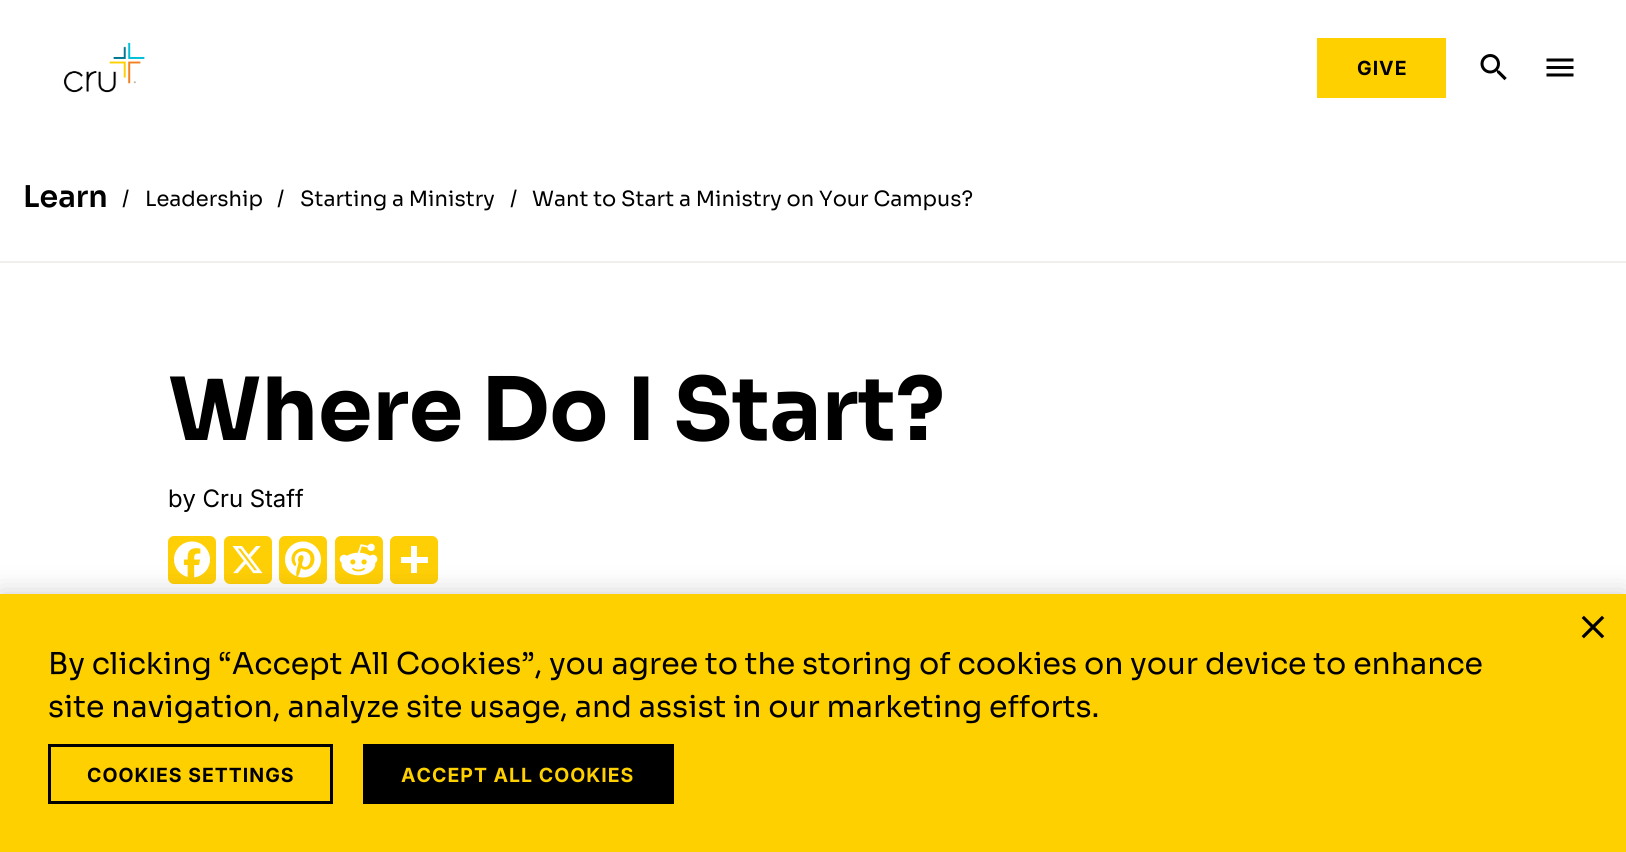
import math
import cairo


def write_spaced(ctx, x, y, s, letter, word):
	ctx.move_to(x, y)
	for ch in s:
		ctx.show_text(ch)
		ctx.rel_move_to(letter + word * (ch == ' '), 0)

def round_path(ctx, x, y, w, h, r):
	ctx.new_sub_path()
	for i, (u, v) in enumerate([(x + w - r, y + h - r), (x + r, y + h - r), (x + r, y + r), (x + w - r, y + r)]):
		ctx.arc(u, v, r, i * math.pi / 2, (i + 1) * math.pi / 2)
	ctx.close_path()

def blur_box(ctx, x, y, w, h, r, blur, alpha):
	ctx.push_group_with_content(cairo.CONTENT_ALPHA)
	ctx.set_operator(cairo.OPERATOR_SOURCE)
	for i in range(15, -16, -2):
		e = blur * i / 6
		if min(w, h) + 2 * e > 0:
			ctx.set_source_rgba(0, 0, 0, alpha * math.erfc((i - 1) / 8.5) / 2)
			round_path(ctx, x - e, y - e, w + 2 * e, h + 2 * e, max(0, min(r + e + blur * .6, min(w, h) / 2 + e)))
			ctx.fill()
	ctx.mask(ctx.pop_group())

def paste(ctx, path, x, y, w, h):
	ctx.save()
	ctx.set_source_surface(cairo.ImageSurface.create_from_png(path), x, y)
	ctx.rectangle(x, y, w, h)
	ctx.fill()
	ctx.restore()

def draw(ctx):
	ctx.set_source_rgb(1, 1, 1)
	ctx.paint()
	paste(ctx, 'media/1.png', 63, 42, 82, 51)
	ctx.set_source_rgb(1, 0.816, 0)
	ctx.rectangle(1317, 38, 129, 60)
	ctx.fill()
	ctx.select_font_face('Inter', cairo.FONT_SLANT_NORMAL, cairo.FONT_WEIGHT_BOLD)
	ctx.set_font_size(19.5)
	ctx.set_source_rgb(0, 0, 0)
	write_spaced(ctx, 1357, 75, 'GIVE', 1, 0)
	paste(ctx, 'media/2.png', 1480, 54, 27, 27)
	paste(ctx, 'media/3.png', 1546, 58, 28, 19)
	ctx.set_source_rgb(0.941, 0.937, 0.933)
	ctx.rectangle(0, 261, 1626, 2)
	ctx.fill()
	ctx.select_font_face('Sora SemiBold')
	ctx.set_font_size(30)
	ctx.set_source_rgb(0, 0, 0)
	ctx.move_to(23, 207)
	ctx.show_text('Learn')
	ctx.select_font_face('Sora')
	ctx.set_font_size(21)
	for x, y, s in [
		(122, 206, '/'),
		(145, 206, 'Leadership'),
		(277, 206, '/'),
		(300, 206, 'Starting a Ministry'),
		(510, 206, '/'),
		(532, 206, 'Want to Start a Ministry on Your Campus?'),
	]:
		ctx.move_to(x, y)
		ctx.show_text(s)
	ctx.select_font_face('Sora', cairo.FONT_SLANT_NORMAL, cairo.FONT_WEIGHT_BOLD)
	ctx.set_font_size(87)
	ctx.move_to(168, 440)
	ctx.show_text('Where Do I Start?')
	ctx.select_font_face('Inter')
	ctx.set_font_size(24)
	ctx.move_to(168, 507)
	ctx.show_text('by Cru Staff')
	ctx.set_source_rgb(1, 0.812, 0.027)
	round_path(ctx, 168, 536, 48, 48, 6)
	ctx.fill()
	paste(ctx, 'media/4.png', 174, 541, 36, 37)
	round_path(ctx, 224, 536, 48, 48, 6)
	ctx.fill()
	paste(ctx, 'media/5.png', 232, 546, 31, 28)
	round_path(ctx, 279, 536, 48, 48, 6)
	ctx.fill()
	paste(ctx, 'media/6.png', 285, 541, 36, 37)
	round_path(ctx, 335, 536, 48, 48, 6)
	ctx.fill()
	paste(ctx, 'media/7.png', 339, 543, 39, 33)
	round_path(ctx, 390, 536, 48, 48, 6)
	ctx.fill()
	ctx.set_source_rgb(1, 1, 1)
	ctx.rectangle(411, 546, 6, 27)
	ctx.fill()
	ctx.rectangle(401, 557, 27, 6)
	ctx.fill()
	ctx.set_source_rgb(0, 0, 0)
	blur_box(ctx, 0, 594, 1626, 258, 0, 13.5, 0.2)
	ctx.set_source_rgb(1, 0.816, 0)
	ctx.rectangle(0, 594, 1626, 258)
	ctx.fill()
	paste(ctx, 'media/8.png', 1581, 615, 24, 24)
	ctx.select_font_face('Sora')
	ctx.set_font_size(30)
	ctx.set_source_rgb(0, 0, 0)
	ctx.move_to(48, 674)
	ctx.show_text('By clicking “Accept All Cookies”, you agree to the storing of cookies on your device to enhance')
	ctx.move_to(48, 717)
	ctx.show_text('site navigation, analyze site usage, and assist in our marketing efforts.')
	ctx.rectangle(49.5, 745.5, 282, 57)
	ctx.set_line_width(3)
	ctx.stroke()
	ctx.select_font_face('Inter', cairo.FONT_SLANT_NORMAL, cairo.FONT_WEIGHT_BOLD)
	ctx.set_font_size(19.5)
	write_spaced(ctx, 87, 782, 'COOKIES SETTINGS', 1, 0)
	ctx.rectangle(363, 744, 311, 60)
	ctx.fill()
	ctx.set_source_rgb(1, 0.816, 0)
	write_spaced(ctx, 401, 782, 'ACCEPT ALL COOKIES', 1, 0)


surface = cairo.ImageSurface(cairo.FORMAT_RGB24, 1626, 852)
ctx = cairo.Context(surface)
options = cairo.FontOptions()
options.set_hint_metrics(cairo.HINT_METRICS_OFF)
options.set_hint_style(cairo.HINT_STYLE_NONE)
ctx.set_font_options(options)
ctx.set_miter_limit(4)
draw(ctx)
surface.write_to_png('image.png')
